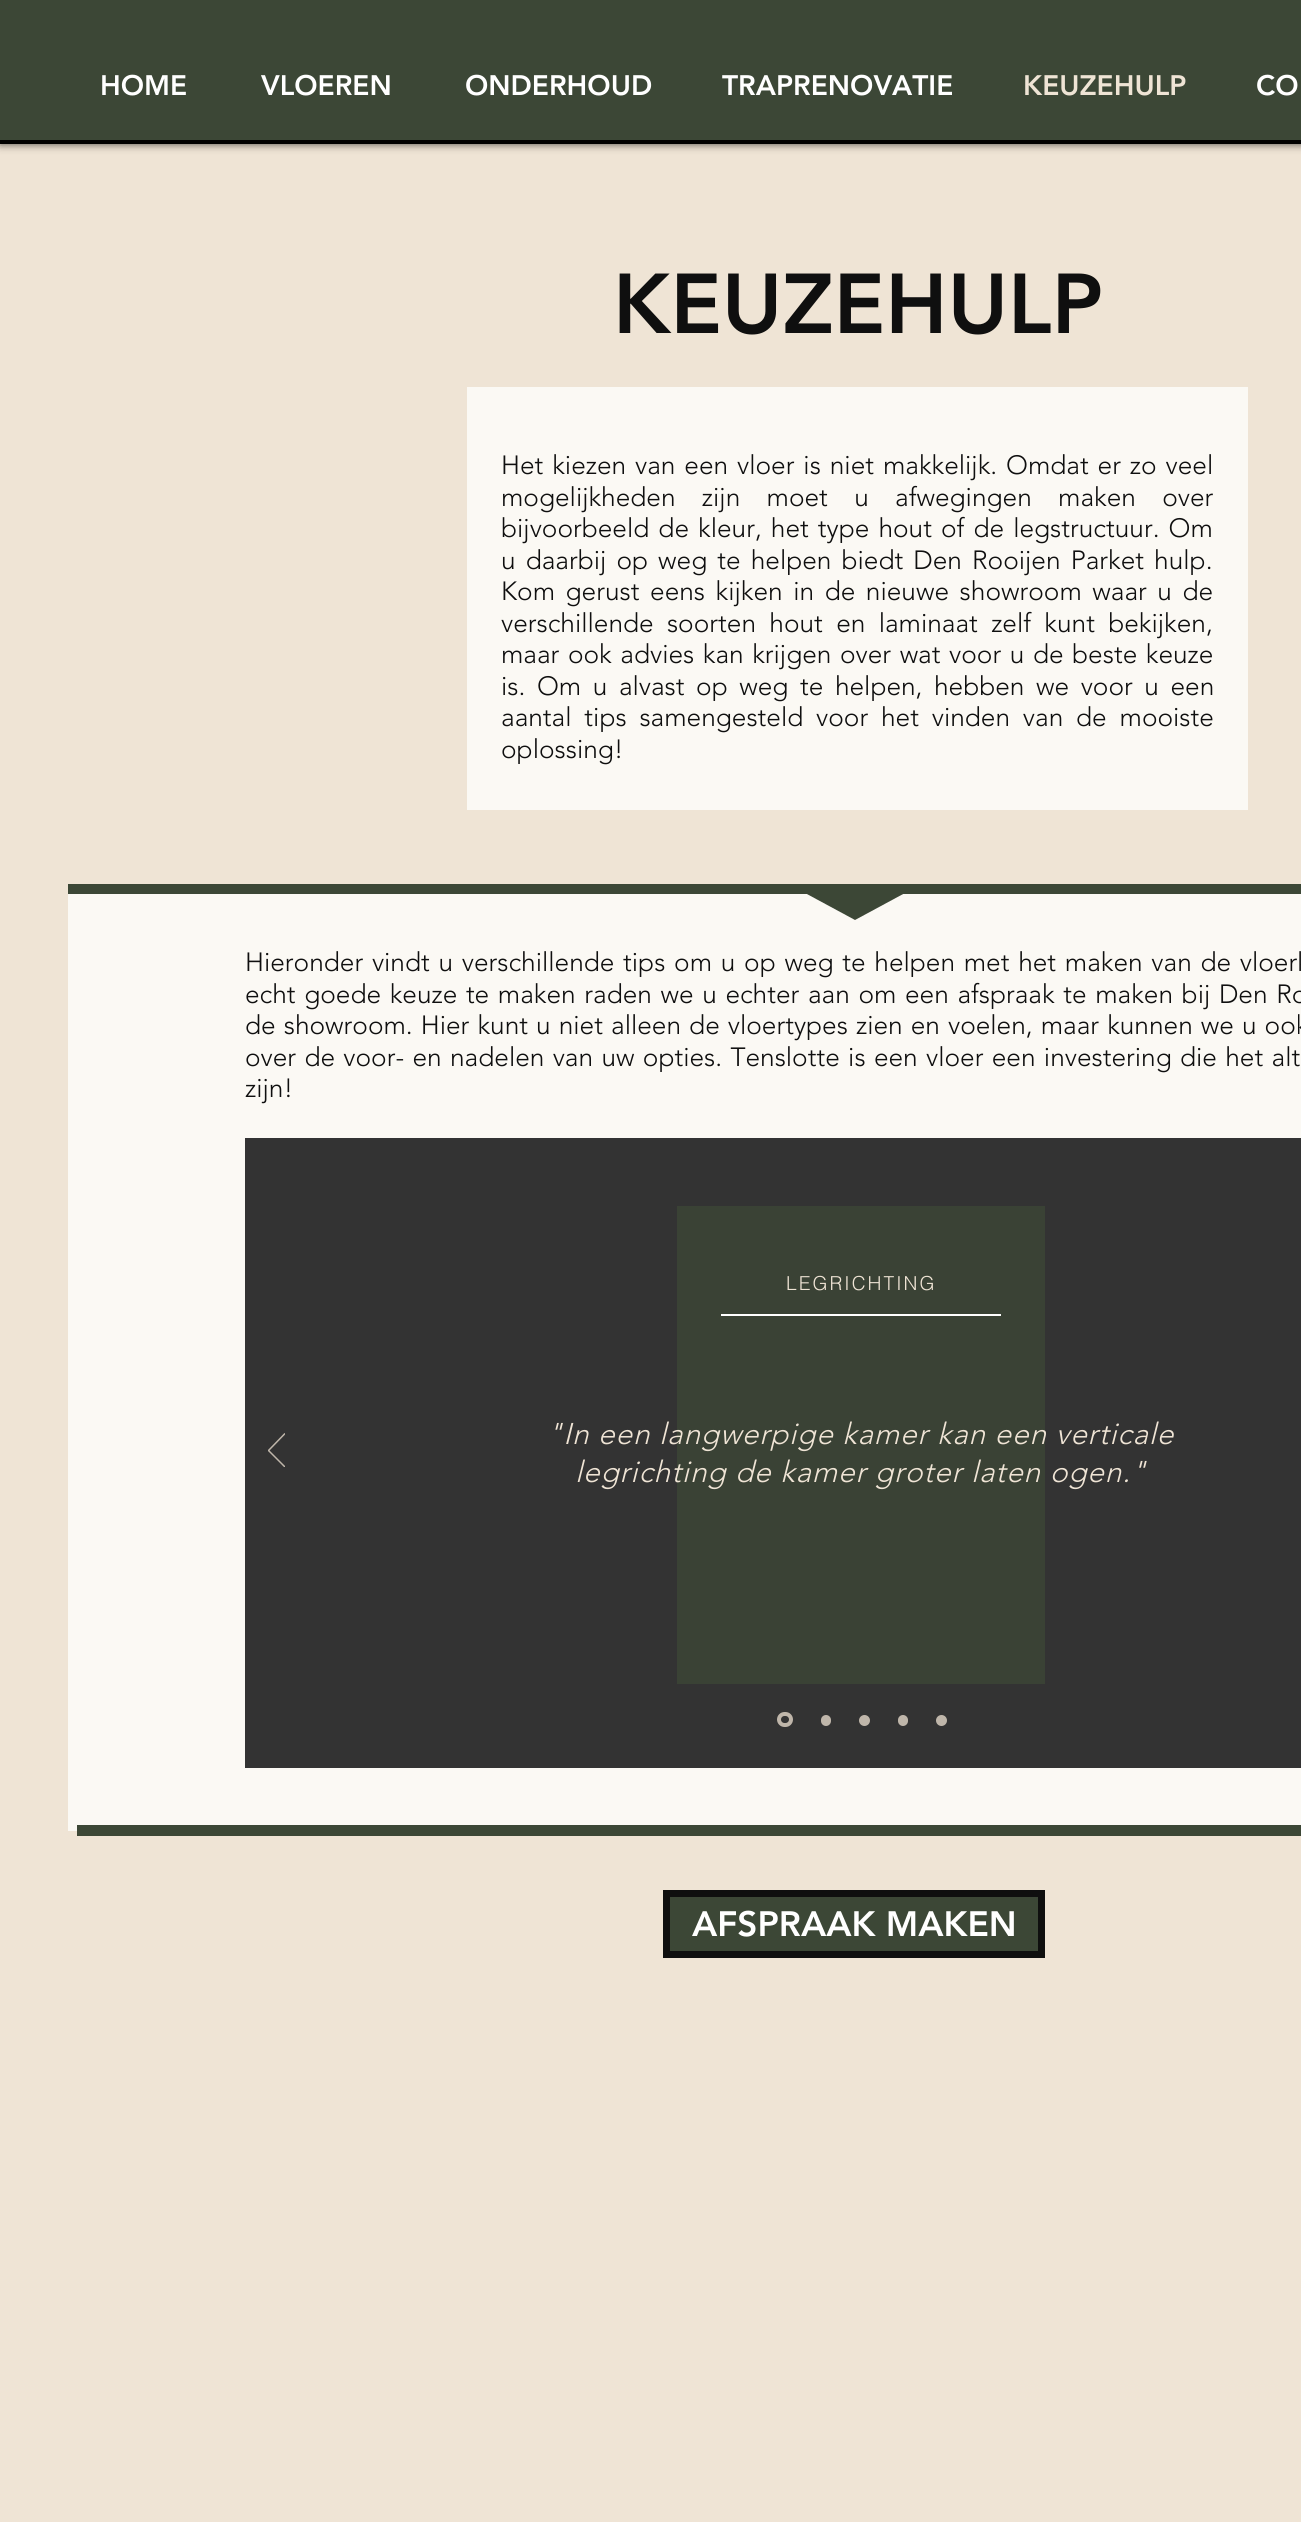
import math
import cairo


def write_spaced(ctx, x, y, s, letter, word):
	ctx.move_to(x, y)
	for ch in s:
		ctx.show_text(ch)
		ctx.rel_move_to(letter + word * (ch == ' '), 0)

def round_path(ctx, x, y, w, h, r):
	ctx.new_sub_path()
	for i, (u, v) in enumerate([(x + w - r, y + h - r), (x + r, y + h - r), (x + r, y + r), (x + w - r, y + r)]):
		ctx.arc(u, v, r, i * math.pi / 2, (i + 1) * math.pi / 2)
	ctx.close_path()

def blur_box(ctx, x, y, w, h, r, blur, alpha):
	ctx.push_group_with_content(cairo.CONTENT_ALPHA)
	ctx.set_operator(cairo.OPERATOR_SOURCE)
	for i in range(15, -16, -2):
		e = blur * i / 6
		if min(w, h) + 2 * e > 0:
			ctx.set_source_rgba(0, 0, 0, alpha * math.erfc((i - 1) / 8.5) / 2)
			round_path(ctx, x - e, y - e, w + 2 * e, h + 2 * e, max(0, min(r + e + blur * .6, min(w, h) / 2 + e)))
			ctx.fill()
	ctx.mask(ctx.pop_group())

def draw(ctx):
	ctx.set_source_rgb(0.937, 0.894, 0.835)
	ctx.paint()
	ctx.set_source_rgb(0, 0, 0)
	blur_box(ctx, 0, 0, 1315, 144, 0, 4.5, 0.7)
	ctx.set_source_rgb(0.235, 0.278, 0.212)
	ctx.rectangle(0, 0, 1301, 140)
	ctx.fill()
	ctx.set_source_rgb(0, 0, 0)
	ctx.rectangle(0, 140, 1301, 4)
	ctx.fill()
	ctx.select_font_face('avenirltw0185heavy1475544 Black')
	ctx.set_font_size(28)
	ctx.set_source_rgb(1, 1, 1)
	for x, y, s in [
		(100, 95, 'HOME'),
		(261, 95, 'VLOEREN'),
		(465, 95, 'ONDERHOUD'),
		(722, 95, 'TRAPRENOVATIE'),
	]:
		ctx.move_to(x, y)
		ctx.show_text(s)
	ctx.set_source_rgb(0.937, 0.894, 0.835)
	ctx.move_to(1023, 95)
	ctx.show_text('KEUZEHULP')
	ctx.set_source_rgb(1, 1, 1)
	ctx.move_to(1256, 95)
	ctx.show_text('CO')
	ctx.set_font_size(84)
	ctx.set_source_rgb(0.059, 0.059, 0.059)
	ctx.move_to(613, 333)
	ctx.show_text('KEUZEHULP')
	ctx.set_source_rgb(0.984, 0.973, 0.957)
	ctx.rectangle(467, 387, 781, 423)
	ctx.fill()
	ctx.select_font_face('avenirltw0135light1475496 Light')
	ctx.set_font_size(26.25)
	ctx.set_source_rgb(0.059, 0.059, 0.059)
	write_spaced(ctx, 501, 474, 'Het kiezen van een vloer is niet makkelijk. Omdat er zo veel', 0, 2.1)
	write_spaced(ctx, 501, 506, 'mogelijkheden zijn moet u afwegingen maken over', 0, 19.5)
	write_spaced(ctx, 501, 537, 'bijvoorbeeld de kleur, het type hout of de legstructuur. Om', 0, 2.25)
	write_spaced(ctx, 501, 569, 'u daarbij op weg te helpen biedt Den Rooijen Parket hulp.', 0, 3.25)
	write_spaced(ctx, 501, 600, 'Kom gerust eens kijken in de nieuwe showroom waar u de', 0, 3.75)
	write_spaced(ctx, 501, 632, 'verschillende soorten hout en laminaat zelf kunt bekijken,', 0, 6.5)
	write_spaced(ctx, 501, 663, 'maar ook advies kan krijgen over wat voor u de beste keuze', 0, 1.75)
	write_spaced(ctx, 501, 695, 'is. Om u alvast op weg te helpen, hebben we voor u een', 0, 4.75)
	write_spaced(ctx, 501, 726, 'aantal tips samengesteld voor het vinden van de mooiste', 0, 6)
	ctx.move_to(501, 758)
	ctx.show_text('oplossing!')
	ctx.set_source_rgb(0.984, 0.973, 0.957)
	ctx.rectangle(68, 894, 1233, 937)
	ctx.fill()
	ctx.set_source_rgb(0.235, 0.278, 0.212)
	ctx.new_path()
	ctx.move_to(855, 920)
	ctx.line_to(805, 893)
	ctx.line_to(905, 893)
	ctx.close_path()
	ctx.fill()
	ctx.rectangle(68, 884, 1233, 10)
	ctx.fill()
	ctx.set_source_rgb(0.059, 0.059, 0.059)
	write_spaced(ctx, 245, 971, 'Hieronder vindt u verschillende tips om u op weg te helpen met het maken van de vloerk', 0, 1.9)
	write_spaced(ctx, 245, 1003, 'echt goede keuze te maken raden we u echter aan om een afspraak te maken bij Den Ro', 0, 1.8)
	write_spaced(ctx, 245, 1034, 'de showroom. Hier kunt u niet alleen de vloertypes zien en voelen, maar kunnen we u ook', 0, 1.25)
	write_spaced(ctx, 245, 1066, 'over de voor- en nadelen van uw opties. Tenslotte is een vloer een investering die het alt', 0, 1.5)
	ctx.move_to(245, 1097)
	ctx.show_text('zijn!')
	ctx.set_source_rgb(0.2, 0.2, 0.2)
	ctx.rectangle(245, 1138, 1056, 630)
	ctx.fill()
	ctx.save()
	ctx.rectangle(268, 1433, 17, 34)
	ctx.clip()
	ctx.new_path()
	ctx.move_to(284.5, 1467)
	ctx.line_to(268, 1450.5)
	ctx.line_to(284.5, 1433.5)
	ctx.line_to(285, 1434)
	ctx.line_to(269, 1450.5)
	ctx.line_to(285, 1466.5)
	ctx.close_path()
	ctx.set_source_rgb(0.749, 0.714, 0.667)
	ctx.set_line_width(0.8)
	ctx.stroke()
	ctx.restore()
	ctx.set_source_rgb(0.227, 0.259, 0.208)
	ctx.rectangle(677, 1206, 368, 478)
	ctx.fill()
	ctx.select_font_face('helvetica Light')
	ctx.set_font_size(19.25)
	ctx.set_source_rgb(0.937, 0.894, 0.835)
	write_spaced(ctx, 786, 1290, 'LEGRICHTING', 2, 0)
	ctx.set_source_rgb(1, 1, 1)
	ctx.rectangle(721, 1314, 280, 2)
	ctx.fill()
	ctx.select_font_face('avenirltw0135light1475496 Light', cairo.FONT_SLANT_ITALIC)
	ctx.set_font_size(29.75)
	ctx.set_source_rgb(0.937, 0.894, 0.835)
	write_spaced(ctx, 547, 1444, '"In een langwerpige kamer kan een verticale', 0.9, 0)
	write_spaced(ctx, 575, 1482, 'legrichting de kamer groter laten ogen."', 0.9, 0)
	round_path(ctx, 779, 1714, 12, 11, 5.5)
	ctx.set_source_rgb(0.749, 0.714, 0.667)
	ctx.set_line_width(4)
	ctx.stroke()
	round_path(ctx, 821, 1715, 10, 11, 5)
	ctx.fill()
	ctx.arc(864.5, 1720.5, 5.5, 0, 2 * math.pi)
	ctx.fill()
	round_path(ctx, 898, 1715, 10, 11, 5)
	ctx.fill()
	ctx.arc(941.5, 1720.5, 5.5, 0, 2 * math.pi)
	ctx.fill()
	ctx.set_source_rgb(0.235, 0.278, 0.212)
	ctx.rectangle(77, 1825, 1224, 11)
	ctx.fill()
	ctx.rectangle(666.5, 1893.5, 375, 61)
	ctx.fill_preserve()
	ctx.set_source_rgb(0.059, 0.059, 0.059)
	ctx.set_line_width(7)
	ctx.stroke()
	ctx.select_font_face('avenirltw0185heavy1475544 Black')
	ctx.set_font_size(35)
	ctx.set_source_rgb(1, 1, 1)
	ctx.move_to(692, 1936)
	ctx.show_text('AFSPRAAK MAKEN')


surface = cairo.ImageSurface(cairo.FORMAT_RGB24, 1301, 2522)
ctx = cairo.Context(surface)
options = cairo.FontOptions()
options.set_hint_metrics(cairo.HINT_METRICS_OFF)
options.set_hint_style(cairo.HINT_STYLE_NONE)
ctx.set_font_options(options)
ctx.set_miter_limit(4)
draw(ctx)
surface.write_to_png('image.png')
